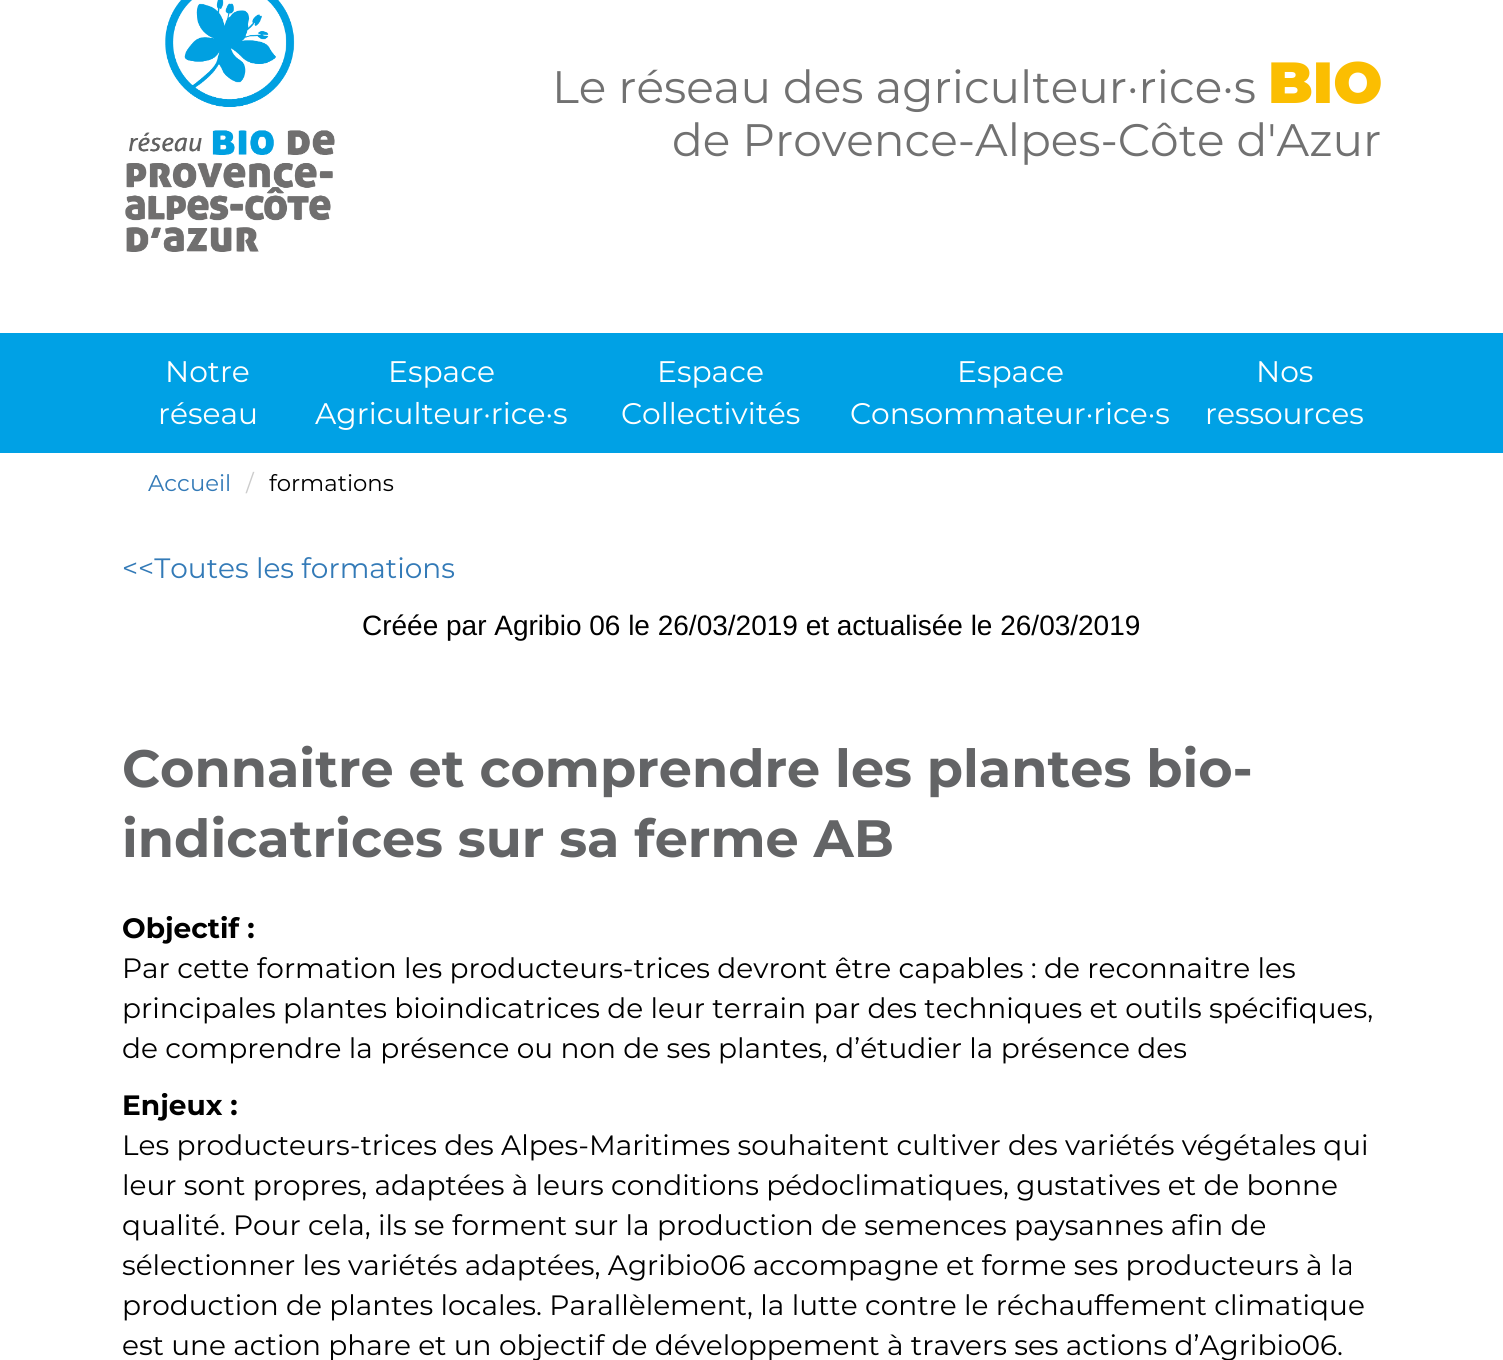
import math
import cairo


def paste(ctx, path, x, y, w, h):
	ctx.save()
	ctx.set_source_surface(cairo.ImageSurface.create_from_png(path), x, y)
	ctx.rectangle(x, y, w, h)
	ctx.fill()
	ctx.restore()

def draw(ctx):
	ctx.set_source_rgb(1, 1, 1)
	ctx.paint()
	paste(ctx, 'media/1.png', 125, 0, 210, 252)
	ctx.select_font_face('Montserrat')
	ctx.set_font_size(45.5)
	ctx.set_source_rgb(0.443, 0.443, 0.443)
	ctx.move_to(552, 103)
	ctx.show_text('Le réseau des agriculteur·rice·s')
	ctx.select_font_face('Montserrat Black')
	ctx.set_font_size(58)
	ctx.set_source_rgb(0.984, 0.745, 0.004)
	ctx.move_to(1268, 103)
	ctx.show_text('BIO')
	ctx.select_font_face('Montserrat')
	ctx.set_font_size(45.5)
	ctx.set_source_rgb(0.443, 0.443, 0.443)
	ctx.move_to(672, 156)
	ctx.show_text('de Provence-Alpes-Côte d\'Azur')
	ctx.set_source_rgb(0, 0.631, 0.898)
	ctx.rectangle(0, 333, 1503, 120)
	ctx.fill()
	ctx.set_font_size(29.75)
	ctx.set_source_rgb(1, 1, 1)
	for x, y, s in [
		(165, 382, 'Notre'),
		(158, 424, 'réseau'),
		(388, 382, 'Espace'),
		(315, 424, 'Agriculteur·rice·s'),
		(657, 382, 'Espace'),
		(621, 424, 'Collectivités'),
		(957, 382, 'Espace'),
		(850, 424, 'Consommateur·rice·s'),
		(1256, 382, 'Nos'),
		(1205, 424, 'ressources'),
	]:
		ctx.move_to(x, y)
		ctx.show_text(s)
	ctx.set_font_size(22.75)
	ctx.set_source_rgb(0.2, 0.478, 0.718)
	ctx.move_to(148, 491)
	ctx.show_text('Accueil')
	ctx.set_source_rgb(0.8, 0.8, 0.8)
	ctx.move_to(246, 491)
	ctx.show_text('/')
	ctx.set_source_rgb(0, 0, 0)
	ctx.move_to(269, 491)
	ctx.show_text('formations')
	ctx.set_font_size(28)
	ctx.set_source_rgb(0.2, 0.478, 0.718)
	ctx.move_to(122, 578)
	ctx.show_text('<<Toutes les formations')
	ctx.select_font_face('Liberation Sans')
	ctx.set_source_rgb(0, 0, 0)
	ctx.move_to(362, 635)
	ctx.show_text('Créée par Agribio 06 le 26/03/2019 et actualisée le 26/03/2019')
	ctx.select_font_face('Montserrat', cairo.FONT_SLANT_NORMAL, cairo.FONT_WEIGHT_BOLD)
	ctx.set_font_size(52.5)
	ctx.set_source_rgb(0.388, 0.392, 0.4)
	ctx.move_to(122, 787)
	ctx.show_text('Connaitre et comprendre les plantes bio-')
	ctx.move_to(122, 857)
	ctx.show_text('indicatrices sur sa ferme AB')
	ctx.set_font_size(28)
	ctx.set_source_rgb(0, 0, 0)
	ctx.move_to(122, 938)
	ctx.show_text('Objectif :')
	ctx.select_font_face('Montserrat')
	for x, y, s in [
		(122, 978, 'Par cette formation les producteurs-trices devront être capables : de reconnaitre les'),
		(122, 1018, 'principales plantes bioindicatrices de leur terrain par des techniques et outils spécifiques,'),
		(122, 1058, 'de comprendre la présence ou non de ses plantes, d’étudier la présence des'),
	]:
		ctx.move_to(x, y)
		ctx.show_text(s)
	ctx.select_font_face('Montserrat', cairo.FONT_SLANT_NORMAL, cairo.FONT_WEIGHT_BOLD)
	ctx.move_to(122, 1115)
	ctx.show_text('Enjeux :')
	ctx.select_font_face('Montserrat')
	for x, y, s in [
		(122, 1155, 'Les producteurs-trices des Alpes-Maritimes souhaitent cultiver des variétés végétales qui'),
		(122, 1195, 'leur sont propres, adaptées à leurs conditions pédoclimatiques, gustatives et de bonne'),
		(122, 1235, 'qualité. Pour cela, ils se forment sur la production de semences paysannes afin de'),
		(122, 1275, 'sélectionner les variétés adaptées, Agribio06 accompagne et forme ses producteurs à la'),
		(122, 1315, 'production de plantes locales. Parallèlement, la lutte contre le réchauffement climatique'),
		(122, 1355, 'est une action phare et un objectif de développement à travers ses actions d’Agribio06.'),
	]:
		ctx.move_to(x, y)
		ctx.show_text(s)


surface = cairo.ImageSurface(cairo.FORMAT_RGB24, 1503, 1360)
ctx = cairo.Context(surface)
options = cairo.FontOptions()
options.set_hint_metrics(cairo.HINT_METRICS_OFF)
options.set_hint_style(cairo.HINT_STYLE_NONE)
ctx.set_font_options(options)
ctx.set_miter_limit(4)
draw(ctx)
surface.write_to_png('image.png')
